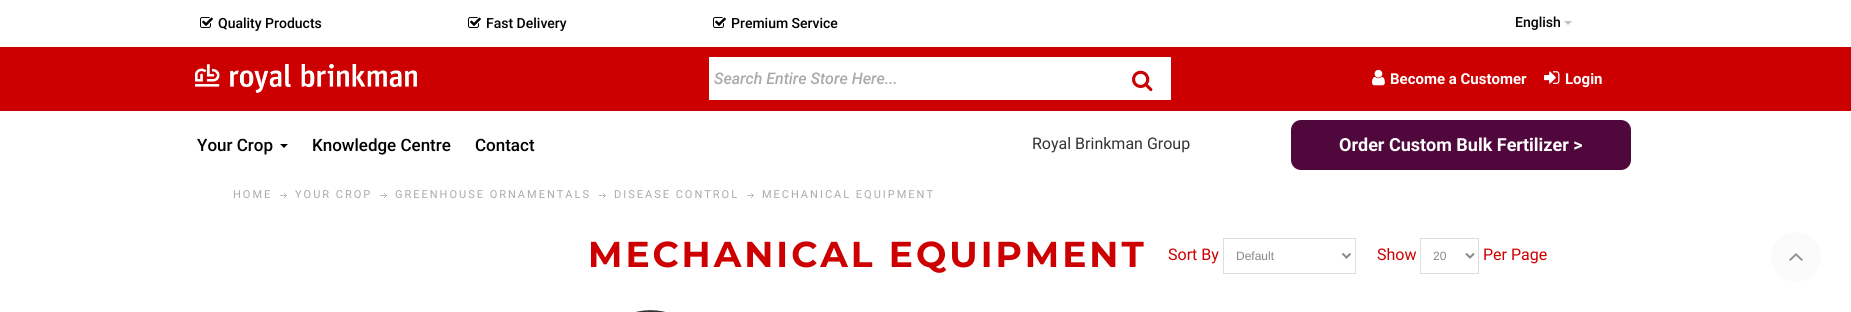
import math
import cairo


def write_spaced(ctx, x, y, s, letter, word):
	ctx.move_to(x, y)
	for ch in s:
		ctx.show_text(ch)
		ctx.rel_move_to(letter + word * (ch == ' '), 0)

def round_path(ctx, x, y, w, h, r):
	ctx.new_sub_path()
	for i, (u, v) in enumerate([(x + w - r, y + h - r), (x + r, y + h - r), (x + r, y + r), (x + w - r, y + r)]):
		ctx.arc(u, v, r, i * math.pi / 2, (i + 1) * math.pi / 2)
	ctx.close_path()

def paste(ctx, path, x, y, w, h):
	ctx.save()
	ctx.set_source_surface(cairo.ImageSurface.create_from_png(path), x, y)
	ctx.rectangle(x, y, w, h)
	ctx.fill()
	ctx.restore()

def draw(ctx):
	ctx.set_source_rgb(1, 1, 1)
	ctx.paint()
	paste(ctx, 'media/1.png', 200, 17, 13, 11)
	ctx.select_font_face('Roboto Medium')
	ctx.set_font_size(14)
	ctx.set_source_rgb(0, 0, 0)
	ctx.move_to(218, 28)
	ctx.show_text('Quality Products')
	paste(ctx, 'media/1.png', 468, 17, 13, 11)
	ctx.move_to(486, 28)
	ctx.show_text('Fast Delivery')
	paste(ctx, 'media/1.png', 713, 17, 13, 11)
	ctx.move_to(731, 28)
	ctx.show_text('Premium Service')
	ctx.move_to(1515, 27)
	ctx.show_text('English')
	ctx.set_source_rgb(0.761, 0.761, 0.761)
	ctx.new_path()
	ctx.move_to(1564, 21)
	ctx.line_to(1572, 21)
	ctx.line_to(1568, 25)
	ctx.close_path()
	ctx.fill()
	ctx.set_source_rgb(0.8, 0, 0)
	ctx.rectangle(0, 47, 1851, 64)
	ctx.fill()
	paste(ctx, 'media/2.png', 195, 64, 222, 29)
	ctx.set_source_rgb(1, 1, 1)
	ctx.rectangle(709, 57, 462, 43)
	ctx.fill()
	ctx.select_font_face('Roboto Medium', cairo.FONT_SLANT_ITALIC)
	ctx.set_font_size(16)
	ctx.set_source_rgb(0.667, 0.667, 0.667)
	ctx.move_to(714, 84)
	ctx.show_text('Search Entire Store Here...')
	paste(ctx, 'media/3.png', 1132, 70, 21, 22)
	paste(ctx, 'media/4.png', 1372, 69, 13, 17)
	ctx.select_font_face('Roboto', cairo.FONT_SLANT_NORMAL, cairo.FONT_WEIGHT_BOLD)
	ctx.set_font_size(15)
	ctx.set_source_rgb(1, 1, 1)
	ctx.move_to(1390, 84)
	ctx.show_text('Become a Customer')
	paste(ctx, 'media/5.png', 1544, 71, 16, 13)
	ctx.move_to(1565, 84)
	ctx.show_text('Login')
	ctx.select_font_face('Roboto Medium')
	ctx.set_font_size(17)
	ctx.set_source_rgb(0, 0, 0)
	ctx.move_to(197, 151)
	ctx.show_text('Your Crop')
	ctx.new_path()
	ctx.move_to(280, 144)
	ctx.line_to(288, 144)
	ctx.line_to(284, 148)
	ctx.close_path()
	ctx.fill()
	ctx.move_to(312, 151)
	ctx.show_text('Knowledge Centre')
	ctx.move_to(475, 151)
	ctx.show_text('Contact')
	ctx.select_font_face('Roboto')
	ctx.set_font_size(16)
	ctx.set_source_rgb(0.2, 0.2, 0.2)
	ctx.move_to(1032, 149)
	ctx.show_text('Royal Brinkman Group')
	ctx.set_source_rgb(0.31, 0.031, 0.235)
	round_path(ctx, 1291, 120, 340, 50, 10)
	ctx.fill()
	ctx.select_font_face('Roboto', cairo.FONT_SLANT_NORMAL, cairo.FONT_WEIGHT_BOLD)
	ctx.set_font_size(18)
	ctx.set_source_rgb(1, 1, 1)
	ctx.move_to(1339, 151)
	ctx.show_text('Order Custom Bulk Fertilizer >')
	ctx.select_font_face('Roboto')
	ctx.set_font_size(11)
	ctx.set_source_rgb(0.667, 0.667, 0.667)
	write_spaced(ctx, 233, 198, 'HOME', 2, 0)
	paste(ctx, 'media/6.png', 280, 193, 7, 5)
	write_spaced(ctx, 295, 198, 'YOUR CROP', 2, 0)
	paste(ctx, 'media/6.png', 380, 193, 7, 5)
	write_spaced(ctx, 395, 198, 'GREENHOUSE ORNAMENTALS', 2, 0)
	paste(ctx, 'media/6.png', 599, 193, 7, 5)
	write_spaced(ctx, 614, 198, 'DISEASE CONTROL', 2, 0)
	paste(ctx, 'media/6.png', 747, 193, 7, 5)
	write_spaced(ctx, 762, 198, 'MECHANICAL EQUIPMENT', 2, 0)
	ctx.select_font_face('Montserrat', cairo.FONT_SLANT_NORMAL, cairo.FONT_WEIGHT_BOLD)
	ctx.set_font_size(36)
	ctx.set_source_rgb(0.8, 0, 0)
	write_spaced(ctx, 588, 267, 'MECHANICAL EQUIPMENT', 3, 0)
	ctx.select_font_face('Roboto')
	ctx.set_font_size(16)
	ctx.move_to(1168, 260)
	ctx.show_text('Sort By')
	ctx.rectangle(1223.5, 238.5, 132, 35)
	ctx.set_source_rgb(0.867, 0.867, 0.867)
	ctx.set_line_width(1)
	ctx.stroke()
	ctx.new_path()
	ctx.move_to(1342.5, 253.5)
	ctx.line_to(1346.5, 257.5)
	ctx.line_to(1350.5, 253.5)
	ctx.set_source_rgb(0.533, 0.533, 0.533)
	ctx.set_line_width(2)
	ctx.stroke()
	ctx.select_font_face('Liberation Sans')
	ctx.set_font_size(12)
	ctx.move_to(1236, 260)
	ctx.show_text('Default')
	ctx.select_font_face('Roboto')
	ctx.set_font_size(16)
	ctx.set_source_rgb(0.8, 0, 0)
	ctx.move_to(1377, 260)
	ctx.show_text('Show')
	ctx.rectangle(1420.5, 238.5, 58, 35)
	ctx.set_source_rgb(0.867, 0.867, 0.867)
	ctx.set_line_width(1)
	ctx.stroke()
	ctx.new_path()
	ctx.move_to(1466, 253.5)
	ctx.line_to(1470, 257.5)
	ctx.line_to(1474, 253.5)
	ctx.set_source_rgb(0.533, 0.533, 0.533)
	ctx.set_line_width(2)
	ctx.stroke()
	ctx.select_font_face('Liberation Sans')
	ctx.set_font_size(12)
	ctx.move_to(1433, 260)
	ctx.show_text('20')
	ctx.select_font_face('Roboto')
	ctx.set_font_size(16)
	ctx.set_source_rgb(0.8, 0, 0)
	ctx.move_to(1483, 260)
	ctx.show_text('Per Page')
	paste(ctx, 'media/7.png', 636, 310, 29, 2)
	ctx.set_source_rgb(0.984, 0.984, 0.984)
	ctx.arc(1796, 257, 25, 0, 2 * math.pi)
	ctx.fill()
	paste(ctx, 'media/8.png', 1789, 253, 14, 8)


surface = cairo.ImageSurface(cairo.FORMAT_RGB24, 1851, 312)
ctx = cairo.Context(surface)
options = cairo.FontOptions()
options.set_hint_metrics(cairo.HINT_METRICS_OFF)
options.set_hint_style(cairo.HINT_STYLE_NONE)
ctx.set_font_options(options)
ctx.set_miter_limit(4)
draw(ctx)
surface.write_to_png('image.png')
